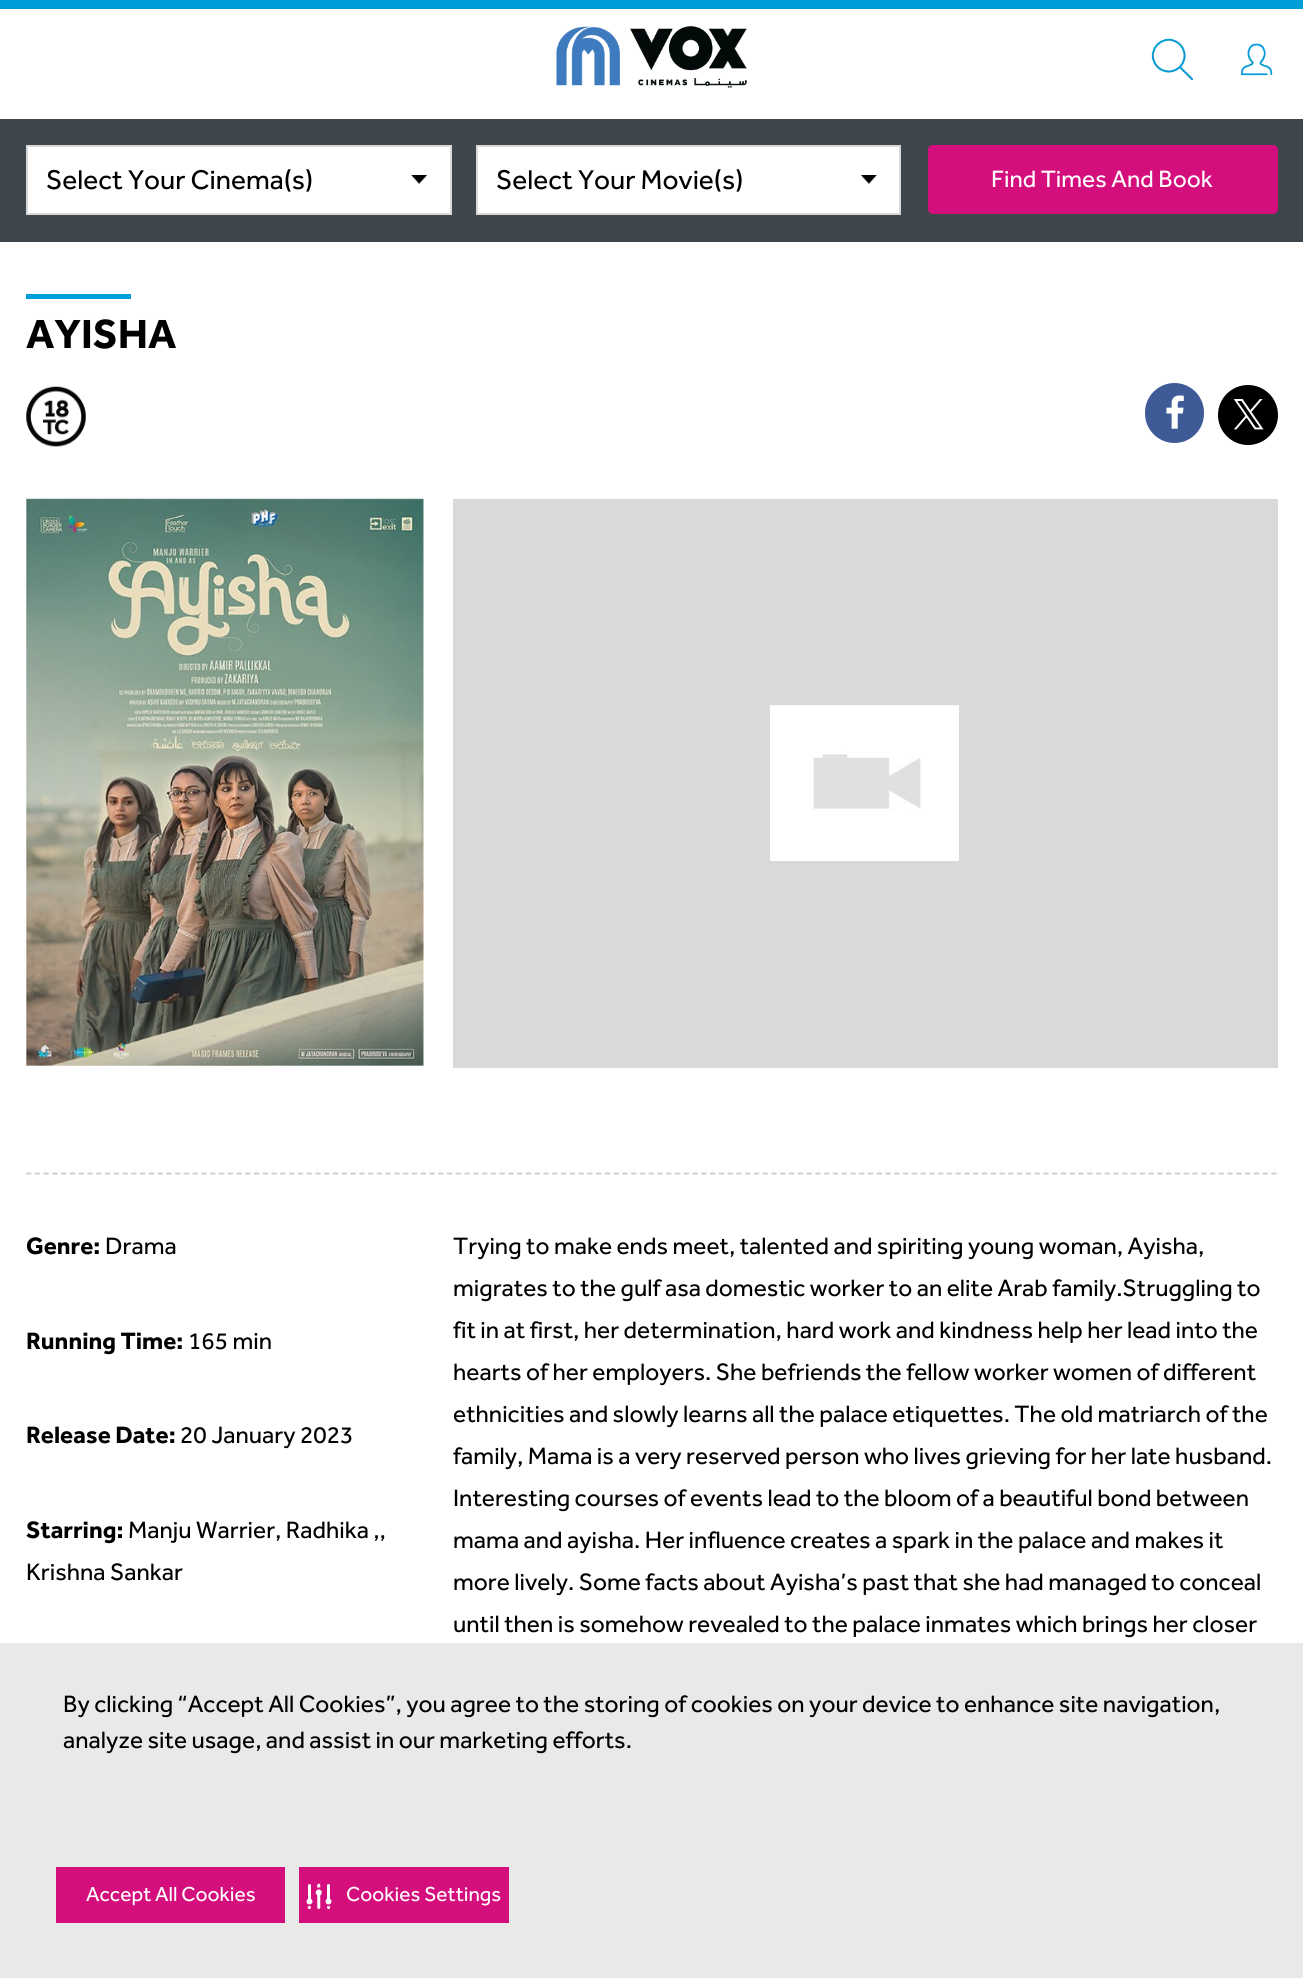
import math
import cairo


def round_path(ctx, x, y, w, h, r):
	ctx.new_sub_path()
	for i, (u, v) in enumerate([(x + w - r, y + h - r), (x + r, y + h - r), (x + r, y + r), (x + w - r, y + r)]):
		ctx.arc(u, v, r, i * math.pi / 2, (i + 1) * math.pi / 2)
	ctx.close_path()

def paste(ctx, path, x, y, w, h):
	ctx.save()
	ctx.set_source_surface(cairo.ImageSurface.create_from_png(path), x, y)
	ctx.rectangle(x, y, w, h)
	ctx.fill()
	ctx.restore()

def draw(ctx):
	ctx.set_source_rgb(1, 1, 1)
	ctx.paint()
	ctx.set_source_rgb(0, 0.616, 0.859)
	ctx.rectangle(0, 0, 1303, 9)
	ctx.fill()
	paste(ctx, 'media/1.png', 556, 26, 191, 62)
	paste(ctx, 'media/2.png', 1151, 38, 42, 42)
	paste(ctx, 'media/3.png', 1240, 43, 33, 33)
	ctx.set_source_rgb(0.243, 0.271, 0.294)
	ctx.rectangle(0, 119, 1303, 123)
	ctx.fill()
	ctx.set_source_rgb(1, 1, 1)
	ctx.rectangle(28, 147, 422, 66)
	ctx.fill()
	paste(ctx, 'media/4.png', 411, 175, 16, 9)
	ctx.rectangle(27, 146, 424, 68)
	ctx.set_source_rgb(0.851, 0.851, 0.851)
	ctx.stroke()
	ctx.select_font_face('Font')
	ctx.set_font_size(28)
	ctx.set_source_rgb(0, 0, 0)
	ctx.move_to(46, 189)
	ctx.show_text('Select Your Cinema(s)')
	ctx.set_source_rgb(1, 1, 1)
	ctx.rectangle(478, 147, 421, 66)
	ctx.fill()
	paste(ctx, 'media/5.png', 861, 175, 16, 9)
	ctx.rectangle(477, 146, 423, 68)
	ctx.set_source_rgb(0.851, 0.851, 0.851)
	ctx.stroke()
	ctx.set_source_rgb(0, 0, 0)
	ctx.move_to(496, 189)
	ctx.show_text('Select Your Movie(s)')
	ctx.set_source_rgb(0.831, 0.059, 0.49)
	round_path(ctx, 929, 146, 348, 67, 4)
	ctx.fill_preserve()
	ctx.stroke()
	ctx.set_font_size(24.5)
	ctx.set_source_rgb(1, 1, 1)
	ctx.move_to(991, 187)
	ctx.show_text('Find Times And Book')
	ctx.set_source_rgb(0, 0.616, 0.859)
	ctx.rectangle(26, 294, 105, 5)
	ctx.fill()
	ctx.select_font_face('Font', cairo.FONT_SLANT_NORMAL, cairo.FONT_WEIGHT_BOLD)
	ctx.set_font_size(42)
	ctx.set_source_rgb(0, 0, 0)
	ctx.move_to(26, 348)
	ctx.show_text('AYISHA')
	paste(ctx, 'media/6.png', 26, 386, 60, 61)
	ctx.set_source_rgb(0.243, 0.357, 0.596)
	round_path(ctx, 1145, 383, 59, 60, 29.5)
	ctx.fill()
	paste(ctx, 'media/7.png', 1166, 395, 18, 34)
	ctx.set_source_rgb(0, 0, 0)
	ctx.arc(1248, 415, 30, 0, 2 * math.pi)
	ctx.fill()
	paste(ctx, 'media/8.png', 1234, 399, 30, 31)
	paste(ctx, 'media/9.png', 26, 498, 398, 568)
	ctx.set_source_rgb(0.851, 0.851, 0.851)
	ctx.rectangle(453, 499, 825, 569)
	ctx.fill()
	paste(ctx, 'media/10.png', 770, 705, 189, 156)
	ctx.new_path()
	ctx.move_to(26, 1173.5)
	ctx.line_to(1277.5, 1173.5)
	ctx.set_source_rgb(0.8, 0.8, 0.8)
	ctx.set_line_width(1.8)
	ctx.set_dash([5.25, 3.52])
	ctx.stroke()
	ctx.set_font_size(24.5)
	ctx.set_source_rgb(0, 0, 0)
	ctx.move_to(26, 1254)
	ctx.show_text('Genre:')
	ctx.select_font_face('Font')
	ctx.move_to(105, 1254)
	ctx.show_text('Drama')
	ctx.select_font_face('Font', cairo.FONT_SLANT_NORMAL, cairo.FONT_WEIGHT_BOLD)
	ctx.move_to(26, 1349)
	ctx.show_text('Running Time:')
	ctx.select_font_face('Font')
	ctx.move_to(188, 1349)
	ctx.show_text('165 min')
	ctx.select_font_face('Font', cairo.FONT_SLANT_NORMAL, cairo.FONT_WEIGHT_BOLD)
	ctx.move_to(26, 1443)
	ctx.show_text('Release Date:')
	ctx.select_font_face('Font')
	ctx.move_to(180, 1443)
	ctx.show_text('20 January 2023')
	ctx.select_font_face('Font', cairo.FONT_SLANT_NORMAL, cairo.FONT_WEIGHT_BOLD)
	ctx.move_to(26, 1538)
	ctx.show_text('Starring:')
	ctx.select_font_face('Font')
	for x, y, s in [
		(128, 1538, 'Manju Warrier, Radhika ,,'),
		(26, 1580, 'Krishna Sankar'),
		(453, 1254, 'Trying to make ends meet, talented and spiriting young woman, Ayisha,'),
		(453, 1296, 'migrates to the gulf asa domestic worker to an elite Arab family.Struggling to'),
		(453, 1338, 'fit in at first, her determination, hard work and kindness help her lead into the'),
		(453, 1380, 'hearts of her employers. She befriends the fellow worker women of different'),
		(453, 1422, 'ethnicities and slowly learns all the palace etiquettes. The old matriarch of the'),
		(453, 1464, 'family, Mama is a very reserved person who lives grieving for her late husband.'),
		(453, 1506, 'Interesting courses of events lead to the bloom of a beautiful bond between'),
		(453, 1548, 'mama and ayisha. Her influence creates a spark in the palace and makes it'),
		(453, 1590, 'more lively. Some facts about Ayisha’s past that she had managed to conceal'),
		(453, 1632, 'until then is somehow revealed to the palace inmates which brings her closer'),
	]:
		ctx.move_to(x, y)
		ctx.show_text(s)
	ctx.set_source_rgb(0.914, 0.914, 0.914)
	ctx.rectangle(0, 1643, 1303, 335)
	ctx.fill()
	ctx.set_source_rgb(0, 0, 0)
	ctx.move_to(63, 1712)
	ctx.show_text('By clicking “Accept All Cookies”, you agree to the storing of cookies on your device to enhance site navigation,')
	ctx.move_to(63, 1748)
	ctx.show_text('analyze site usage, and assist in our marketing efforts.')
	ctx.set_source_rgb(0.831, 0.059, 0.49)
	ctx.rectangle(56, 1867, 229, 56)
	ctx.fill()
	ctx.set_font_size(21)
	ctx.set_source_rgb(1, 1, 1)
	ctx.move_to(86, 1901)
	ctx.show_text('Accept All Cookies')
	ctx.set_source_rgb(0.831, 0.059, 0.49)
	ctx.rectangle(299, 1867, 210, 56)
	ctx.fill()
	paste(ctx, 'media/11.png', 306, 1883, 26, 26)
	ctx.set_source_rgb(1, 1, 1)
	ctx.move_to(346, 1901)
	ctx.show_text('Cookies Settings')


surface = cairo.ImageSurface(cairo.FORMAT_RGB24, 1303, 1978)
ctx = cairo.Context(surface)
options = cairo.FontOptions()
options.set_hint_metrics(cairo.HINT_METRICS_OFF)
options.set_hint_style(cairo.HINT_STYLE_NONE)
ctx.set_font_options(options)
ctx.set_miter_limit(4)
draw(ctx)
surface.write_to_png('image.png')
